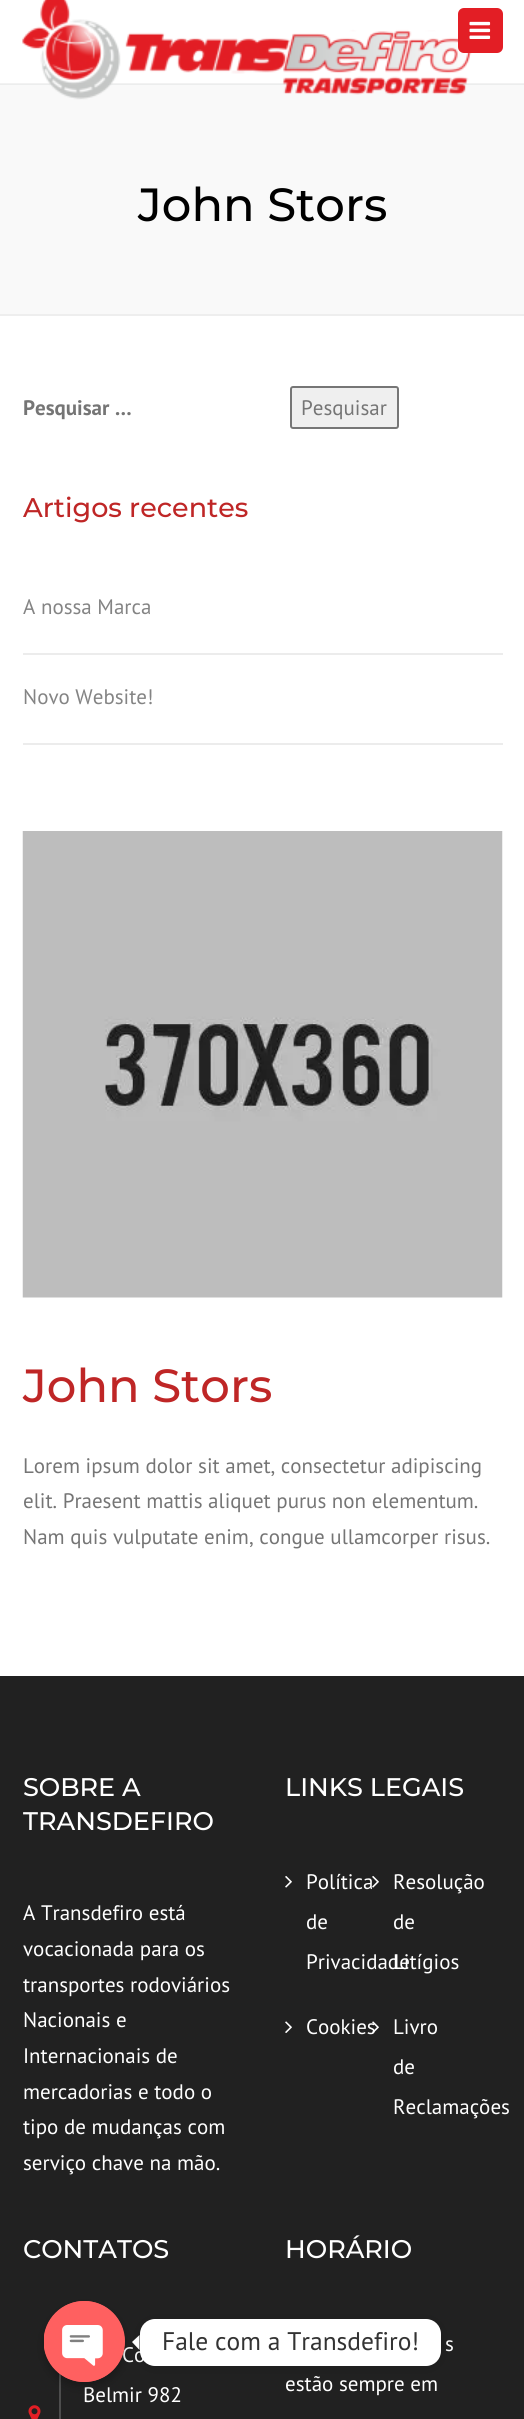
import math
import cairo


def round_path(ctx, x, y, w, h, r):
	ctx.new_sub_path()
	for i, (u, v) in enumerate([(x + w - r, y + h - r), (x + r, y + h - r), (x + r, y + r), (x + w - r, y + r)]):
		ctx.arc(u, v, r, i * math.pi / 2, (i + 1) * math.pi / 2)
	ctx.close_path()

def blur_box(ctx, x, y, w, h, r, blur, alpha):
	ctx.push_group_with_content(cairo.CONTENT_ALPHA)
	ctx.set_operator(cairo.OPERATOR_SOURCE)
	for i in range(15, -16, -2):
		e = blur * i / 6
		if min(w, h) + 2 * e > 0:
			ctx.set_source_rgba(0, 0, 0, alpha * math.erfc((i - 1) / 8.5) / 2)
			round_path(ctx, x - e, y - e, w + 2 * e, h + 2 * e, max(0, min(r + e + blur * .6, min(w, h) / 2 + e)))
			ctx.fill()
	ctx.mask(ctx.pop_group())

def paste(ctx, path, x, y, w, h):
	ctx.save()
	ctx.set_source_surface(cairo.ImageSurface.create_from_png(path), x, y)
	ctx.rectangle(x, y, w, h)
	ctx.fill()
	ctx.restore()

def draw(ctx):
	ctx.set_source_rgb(1, 1, 1)
	ctx.paint()
	ctx.set_source_rgb(0.949, 0.949, 0.949)
	ctx.rectangle(0, 83, 524, 1)
	ctx.fill()
	ctx.set_source_rgb(0.973, 0.976, 0.976)
	ctx.rectangle(0, 85, 524, 229)
	ctx.fill()
	ctx.set_source_rgb(0.925, 0.929, 0.929)
	ctx.rectangle(0, 84, 524, 1)
	ctx.fill()
	paste(ctx, 'media/1.png', 22, 0, 450, 100)
	ctx.set_source_rgb(0.89, 0.118, 0.145)
	round_path(ctx, 458, 8, 45, 45, 6)
	ctx.fill()
	paste(ctx, 'media/2.png', 469, 21, 22, 18)
	ctx.set_source_rgb(0.933, 0.933, 0.933)
	ctx.rectangle(0, 314, 524, 2)
	ctx.fill()
	ctx.select_font_face('Montserrat Medium')
	ctx.set_font_size(46.5)
	ctx.set_source_rgb(0, 0, 0)
	ctx.move_to(138, 221)
	ctx.show_text('John Stors')
	ctx.select_font_face('PT Sans', cairo.FONT_SLANT_NORMAL, cairo.FONT_WEIGHT_BOLD)
	ctx.set_font_size(21)
	ctx.set_source_rgb(0.459, 0.459, 0.459)
	ctx.move_to(23, 415)
	ctx.show_text('Pesquisar …')
	ctx.set_source_rgb(0.937, 0.937, 0.937)
	round_path(ctx, 291, 387, 107, 41, 2)
	ctx.fill_preserve()
	ctx.set_source_rgb(0.463, 0.463, 0.463)
	ctx.stroke()
	ctx.select_font_face('PT Sans')
	ctx.set_source_rgb(0.459, 0.459, 0.459)
	ctx.move_to(301, 415)
	ctx.show_text('Pesquisar')
	ctx.select_font_face('Montserrat Medium')
	ctx.set_font_size(27)
	ctx.set_source_rgb(0.749, 0.149, 0.149)
	ctx.move_to(23, 517)
	ctx.show_text('Artigos recentes')
	ctx.set_source_rgb(0.922, 0.922, 0.922)
	ctx.rectangle(23, 653, 480, 2)
	ctx.fill()
	ctx.select_font_face('PT Sans')
	ctx.set_font_size(21)
	ctx.set_source_rgb(0.518, 0.518, 0.518)
	ctx.move_to(23, 614)
	ctx.show_text('A nossa Marca')
	ctx.set_source_rgb(0.922, 0.922, 0.922)
	ctx.rectangle(23, 743, 480, 2)
	ctx.fill()
	ctx.set_source_rgb(0.518, 0.518, 0.518)
	ctx.move_to(23, 704)
	ctx.show_text('Novo Website!')
	paste(ctx, 'media/3.png', 22, 831, 481, 467)
	ctx.select_font_face('Montserrat Medium')
	ctx.set_font_size(46.5)
	ctx.set_source_rgb(0.749, 0.149, 0.149)
	ctx.move_to(23, 1402)
	ctx.show_text('John Stors')
	ctx.select_font_face('PT Sans')
	ctx.set_font_size(21)
	ctx.set_source_rgb(0.459, 0.459, 0.459)
	for x, y, s in [
		(23, 1473, 'Lorem ipsum dolor sit amet, consectetur adipiscing'),
		(23, 1508, 'elit. Praesent mattis aliquet purus non elementum.'),
		(23, 1544, 'Nam quis vulputate enim, congue ullamcorper risus.'),
	]:
		ctx.move_to(x, y)
		ctx.show_text(s)
	ctx.set_source_rgb(0.129, 0.129, 0.129)
	ctx.rectangle(0, 1676, 524, 743)
	ctx.fill()
	ctx.select_font_face('Montserrat Medium')
	ctx.set_font_size(25.5)
	ctx.set_source_rgb(1, 1, 1)
	ctx.move_to(23, 1796)
	ctx.show_text('SOBRE A')
	ctx.move_to(23, 1830)
	ctx.show_text('TRANSDEFIRO')
	ctx.select_font_face('PT Sans')
	ctx.set_font_size(21)
	for x, y, s in [
		(23, 1920, 'A Transdefiro está'),
		(23, 1956, 'vocacionada para os'),
		(23, 1992, 'transportes rodoviários'),
		(23, 2027, 'Nacionais e'),
		(23, 2063, 'Internacionais de'),
		(23, 2099, 'mercadorias e todo o'),
		(23, 2134, 'tipo de mudanças com'),
		(23, 2170, 'serviço chave na mão.'),
	]:
		ctx.move_to(x, y)
		ctx.show_text(s)
	ctx.select_font_face('Montserrat Medium')
	ctx.set_font_size(25.5)
	ctx.move_to(285, 1796)
	ctx.show_text('LINKS LEGAIS')
	paste(ctx, 'media/4.png', 285, 1876, 7, 12)
	ctx.select_font_face('PT Sans')
	ctx.set_font_size(21)
	for x, y, s in [
		(306, 1889, 'Política'),
		(306, 1929, 'de'),
		(306, 1969, 'Privacidade'),
	]:
		ctx.move_to(x, y)
		ctx.show_text(s)
	paste(ctx, 'media/4.png', 372, 1876, 7, 12)
	for x, y, s in [
		(393, 1889, 'Resolução'),
		(393, 1929, 'de'),
		(393, 1969, 'Litígios'),
	]:
		ctx.move_to(x, y)
		ctx.show_text(s)
	paste(ctx, 'media/5.png', 285, 2021, 7, 12)
	ctx.move_to(306, 2034)
	ctx.show_text('Cookies')
	paste(ctx, 'media/6.png', 372, 2021, 7, 12)
	for x, y, s in [
		(393, 2034, 'Livro'),
		(393, 2074, 'de'),
		(393, 2114, 'Reclamações'),
	]:
		ctx.move_to(x, y)
		ctx.show_text(s)
	ctx.select_font_face('Montserrat Medium')
	ctx.set_font_size(25.5)
	ctx.move_to(23, 2258)
	ctx.show_text('CONTATOS')
	ctx.select_font_face('PT Sans')
	ctx.set_font_size(21)
	ctx.move_to(122, 2362)
	ctx.show_text('Co')
	ctx.set_source_rgb(0.302, 0.302, 0.302)
	ctx.rectangle(59, 2373, 2, 46)
	ctx.fill()
	ctx.set_source_rgb(1, 1, 1)
	ctx.move_to(83, 2402)
	ctx.show_text('Belmir 982')
	paste(ctx, 'media/7.png', 28, 2405, 13, 14)
	ctx.select_font_face('Montserrat Medium')
	ctx.set_font_size(25.5)
	ctx.move_to(285, 2258)
	ctx.show_text('HORÁRIO')
	ctx.select_font_face('PT Sans')
	ctx.set_font_size(21)
	ctx.move_to(445, 2351)
	ctx.show_text('s')
	ctx.move_to(285, 2391)
	ctx.show_text('estão sempre em')
	ctx.set_source_rgb(0, 0, 0)
	blur_box(ctx, 140, 2321, 301, 46, 15, 6, 0.15)
	ctx.set_source_rgb(1, 1, 1)
	ctx.new_path()
	ctx.move_to(139.5, 2335)
	ctx.line_to(139.5, 2350)
	ctx.line_to(132, 2342)
	ctx.close_path()
	ctx.fill()
	ctx.set_source_rgb(0, 0, 0)
	blur_box(ctx, 44, 2306, 81, 81, 40.5, 4.5, 0.25)
	ctx.set_source_rgb(1, 0.376, 0.376)
	ctx.arc(84.5, 2341.5, 40.5, 0, 2 * math.pi)
	ctx.fill()
	paste(ctx, 'media/8.png', 44, 2301, 81, 81)
	ctx.set_source_rgb(1, 1, 1)
	round_path(ctx, 140, 2319, 301, 47, 15)
	ctx.fill()
	ctx.set_font_size(25.5)
	ctx.set_source_rgb(0.2, 0.2, 0.2)
	ctx.move_to(162, 2350)
	ctx.show_text('Fale com a Transdefiro!')


surface = cairo.ImageSurface(cairo.FORMAT_RGB24, 524, 2419)
ctx = cairo.Context(surface)
options = cairo.FontOptions()
options.set_hint_metrics(cairo.HINT_METRICS_OFF)
options.set_hint_style(cairo.HINT_STYLE_NONE)
ctx.set_font_options(options)
ctx.set_miter_limit(4)
draw(ctx)
surface.write_to_png('image.png')
